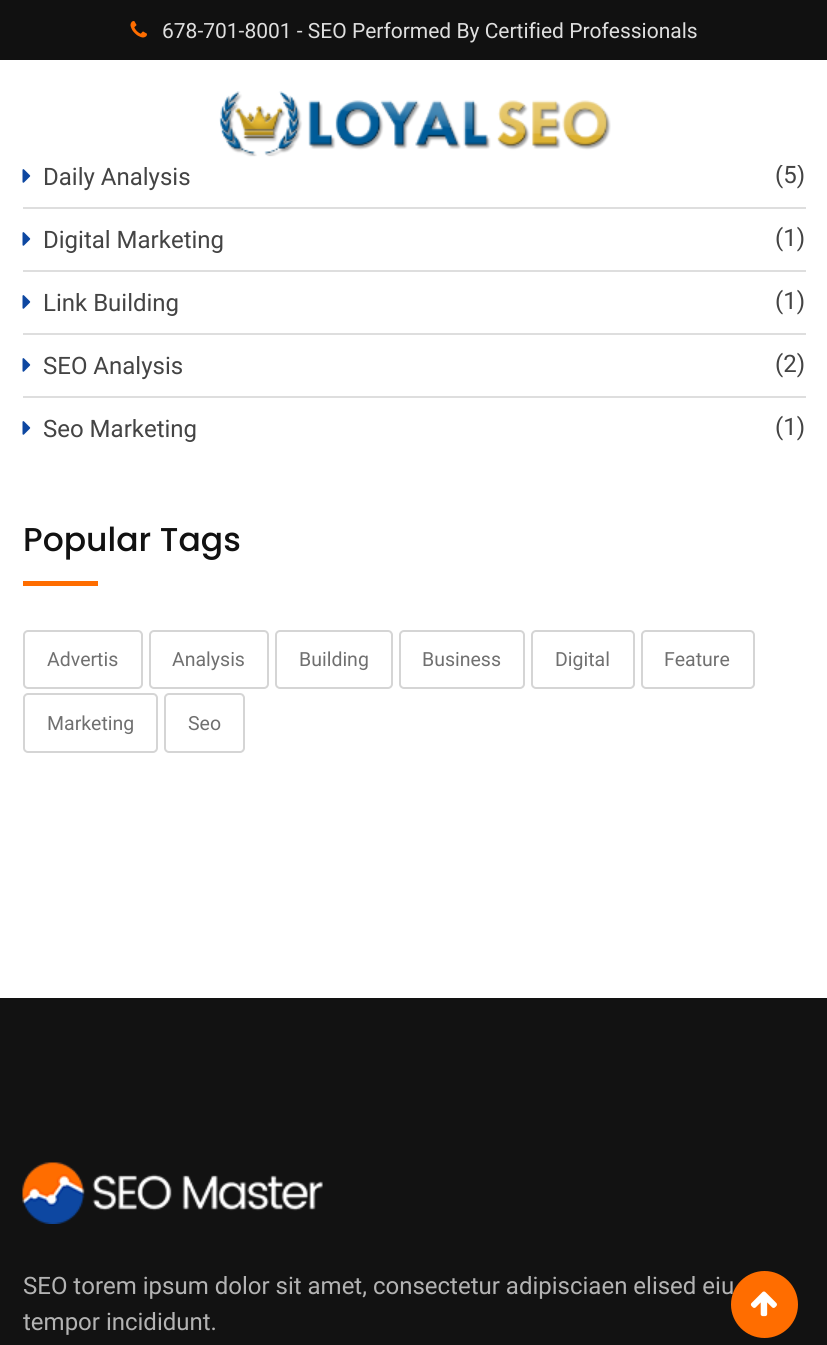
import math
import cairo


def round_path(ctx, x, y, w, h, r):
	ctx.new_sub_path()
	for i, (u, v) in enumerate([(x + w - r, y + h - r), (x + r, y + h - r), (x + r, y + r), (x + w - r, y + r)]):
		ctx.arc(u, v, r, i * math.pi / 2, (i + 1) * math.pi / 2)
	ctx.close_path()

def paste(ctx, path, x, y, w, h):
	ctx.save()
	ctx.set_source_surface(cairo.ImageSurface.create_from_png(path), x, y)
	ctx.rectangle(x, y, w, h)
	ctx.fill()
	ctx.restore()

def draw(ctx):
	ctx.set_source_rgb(1, 1, 1)
	ctx.paint()
	ctx.select_font_face('Roboto')
	ctx.set_font_size(24)
	ctx.set_source_rgb(0.267, 0.267, 0.267)
	ctx.move_to(775, 183)
	ctx.show_text('(5)')
	ctx.set_source_rgb(1, 1, 1)
	ctx.rectangle(781, 163, 19, 2)
	ctx.fill()
	ctx.set_source_rgb(0.067, 0.067, 0.067)
	ctx.rectangle(0, 0, 827, 60)
	ctx.fill()
	paste(ctx, 'media/1.png', 130, 21, 17, 17)
	ctx.set_font_size(21)
	ctx.set_source_rgb(0.875, 0.875, 0.875)
	ctx.move_to(162, 38)
	ctx.show_text('678-701-8001 - SEO Performed By Certified Professionals')
	paste(ctx, 'media/2.png', 219, 91, 392, 66)
	ctx.set_source_rgb(0.871, 0.871, 0.871)
	ctx.rectangle(23, 207, 783, 2)
	ctx.fill()
	paste(ctx, 'media/3.png', 22, 169, 9, 14)
	ctx.set_font_size(24)
	ctx.set_source_rgb(0.267, 0.267, 0.267)
	ctx.move_to(43, 185)
	ctx.show_text('Daily Analysis')
	ctx.set_source_rgb(0.871, 0.871, 0.871)
	ctx.rectangle(23, 270, 783, 2)
	ctx.fill()
	paste(ctx, 'media/3.png', 22, 232, 9, 14)
	ctx.set_source_rgb(0.267, 0.267, 0.267)
	ctx.move_to(43, 248)
	ctx.show_text('Digital Marketing')
	ctx.move_to(775, 246)
	ctx.show_text('(1)')
	ctx.set_source_rgb(0.871, 0.871, 0.871)
	ctx.rectangle(23, 333, 783, 2)
	ctx.fill()
	paste(ctx, 'media/3.png', 22, 295, 9, 14)
	ctx.set_source_rgb(0.267, 0.267, 0.267)
	ctx.move_to(43, 311)
	ctx.show_text('Link Building')
	ctx.move_to(775, 309)
	ctx.show_text('(1)')
	ctx.set_source_rgb(0.871, 0.871, 0.871)
	ctx.rectangle(23, 396, 783, 2)
	ctx.fill()
	paste(ctx, 'media/3.png', 22, 358, 9, 14)
	ctx.set_source_rgb(0.267, 0.267, 0.267)
	ctx.move_to(43, 374)
	ctx.show_text('SEO Analysis')
	ctx.move_to(775, 372)
	ctx.show_text('(2)')
	paste(ctx, 'media/3.png', 22, 421, 9, 14)
	ctx.move_to(43, 437)
	ctx.show_text('Seo Marketing')
	ctx.move_to(775, 435)
	ctx.show_text('(1)')
	ctx.select_font_face('Poppins Medium')
	ctx.set_font_size(33)
	ctx.set_source_rgb(0.067, 0.067, 0.067)
	ctx.move_to(23, 551)
	ctx.show_text('Popular Tags')
	ctx.set_source_rgb(1, 0.427, 0)
	ctx.rectangle(23, 581, 75, 5)
	ctx.fill()
	round_path(ctx, 24, 631, 118, 57, 4)
	ctx.set_source_rgb(0.835, 0.835, 0.835)
	ctx.stroke()
	ctx.select_font_face('Roboto')
	ctx.set_font_size(19.5)
	ctx.set_source_rgb(0.439, 0.439, 0.439)
	ctx.move_to(47, 666)
	ctx.show_text('Advertis')
	round_path(ctx, 150, 631, 118, 57, 4)
	ctx.set_source_rgb(0.835, 0.835, 0.835)
	ctx.stroke()
	ctx.set_source_rgb(0.439, 0.439, 0.439)
	ctx.move_to(172, 666)
	ctx.show_text('Analysis')
	round_path(ctx, 276, 631, 116, 57, 4)
	ctx.set_source_rgb(0.835, 0.835, 0.835)
	ctx.stroke()
	ctx.set_source_rgb(0.439, 0.439, 0.439)
	ctx.move_to(299, 666)
	ctx.show_text('Building')
	round_path(ctx, 400, 631, 124, 57, 4)
	ctx.set_source_rgb(0.835, 0.835, 0.835)
	ctx.stroke()
	ctx.set_source_rgb(0.439, 0.439, 0.439)
	ctx.move_to(422, 666)
	ctx.show_text('Business')
	round_path(ctx, 532, 631, 102, 57, 4)
	ctx.set_source_rgb(0.835, 0.835, 0.835)
	ctx.stroke()
	ctx.set_source_rgb(0.439, 0.439, 0.439)
	ctx.move_to(555, 666)
	ctx.show_text('Digital')
	round_path(ctx, 642, 631, 112, 57, 4)
	ctx.set_source_rgb(0.835, 0.835, 0.835)
	ctx.stroke()
	ctx.set_source_rgb(0.439, 0.439, 0.439)
	ctx.move_to(664, 666)
	ctx.show_text('Feature')
	round_path(ctx, 24, 694, 133, 58, 4)
	ctx.set_source_rgb(0.835, 0.835, 0.835)
	ctx.stroke()
	ctx.set_source_rgb(0.439, 0.439, 0.439)
	ctx.move_to(47, 730)
	ctx.show_text('Marketing')
	round_path(ctx, 165, 694, 79, 58, 4)
	ctx.set_source_rgb(0.835, 0.835, 0.835)
	ctx.stroke()
	ctx.set_source_rgb(0.439, 0.439, 0.439)
	ctx.move_to(188, 730)
	ctx.show_text('Seo')
	ctx.set_source_rgb(0.071, 0.071, 0.071)
	ctx.rectangle(0, 998, 827, 347)
	ctx.fill()
	paste(ctx, 'media/4.png', 22, 1162, 301, 62)
	ctx.set_font_size(24)
	ctx.set_source_rgb(0.702, 0.702, 0.702)
	ctx.move_to(23, 1294)
	ctx.show_text('SEO torem ipsum dolor sit amet, consectetur adipisciaen elised eiu')
	ctx.move_to(23, 1330)
	ctx.show_text('tempor incididunt.')
	ctx.set_source_rgb(1, 0.427, 0)
	ctx.new_path()
	ctx.arc(764.5, 1304.5, 33.5, 0, 2 * math.pi)
	ctx.fill()
	paste(ctx, 'media/5.png', 750, 1291, 27, 26)


surface = cairo.ImageSurface(cairo.FORMAT_RGB24, 827, 1345)
ctx = cairo.Context(surface)
options = cairo.FontOptions()
options.set_hint_metrics(cairo.HINT_METRICS_OFF)
options.set_hint_style(cairo.HINT_STYLE_NONE)
ctx.set_font_options(options)
ctx.set_miter_limit(4)
draw(ctx)
surface.write_to_png('image.png')
